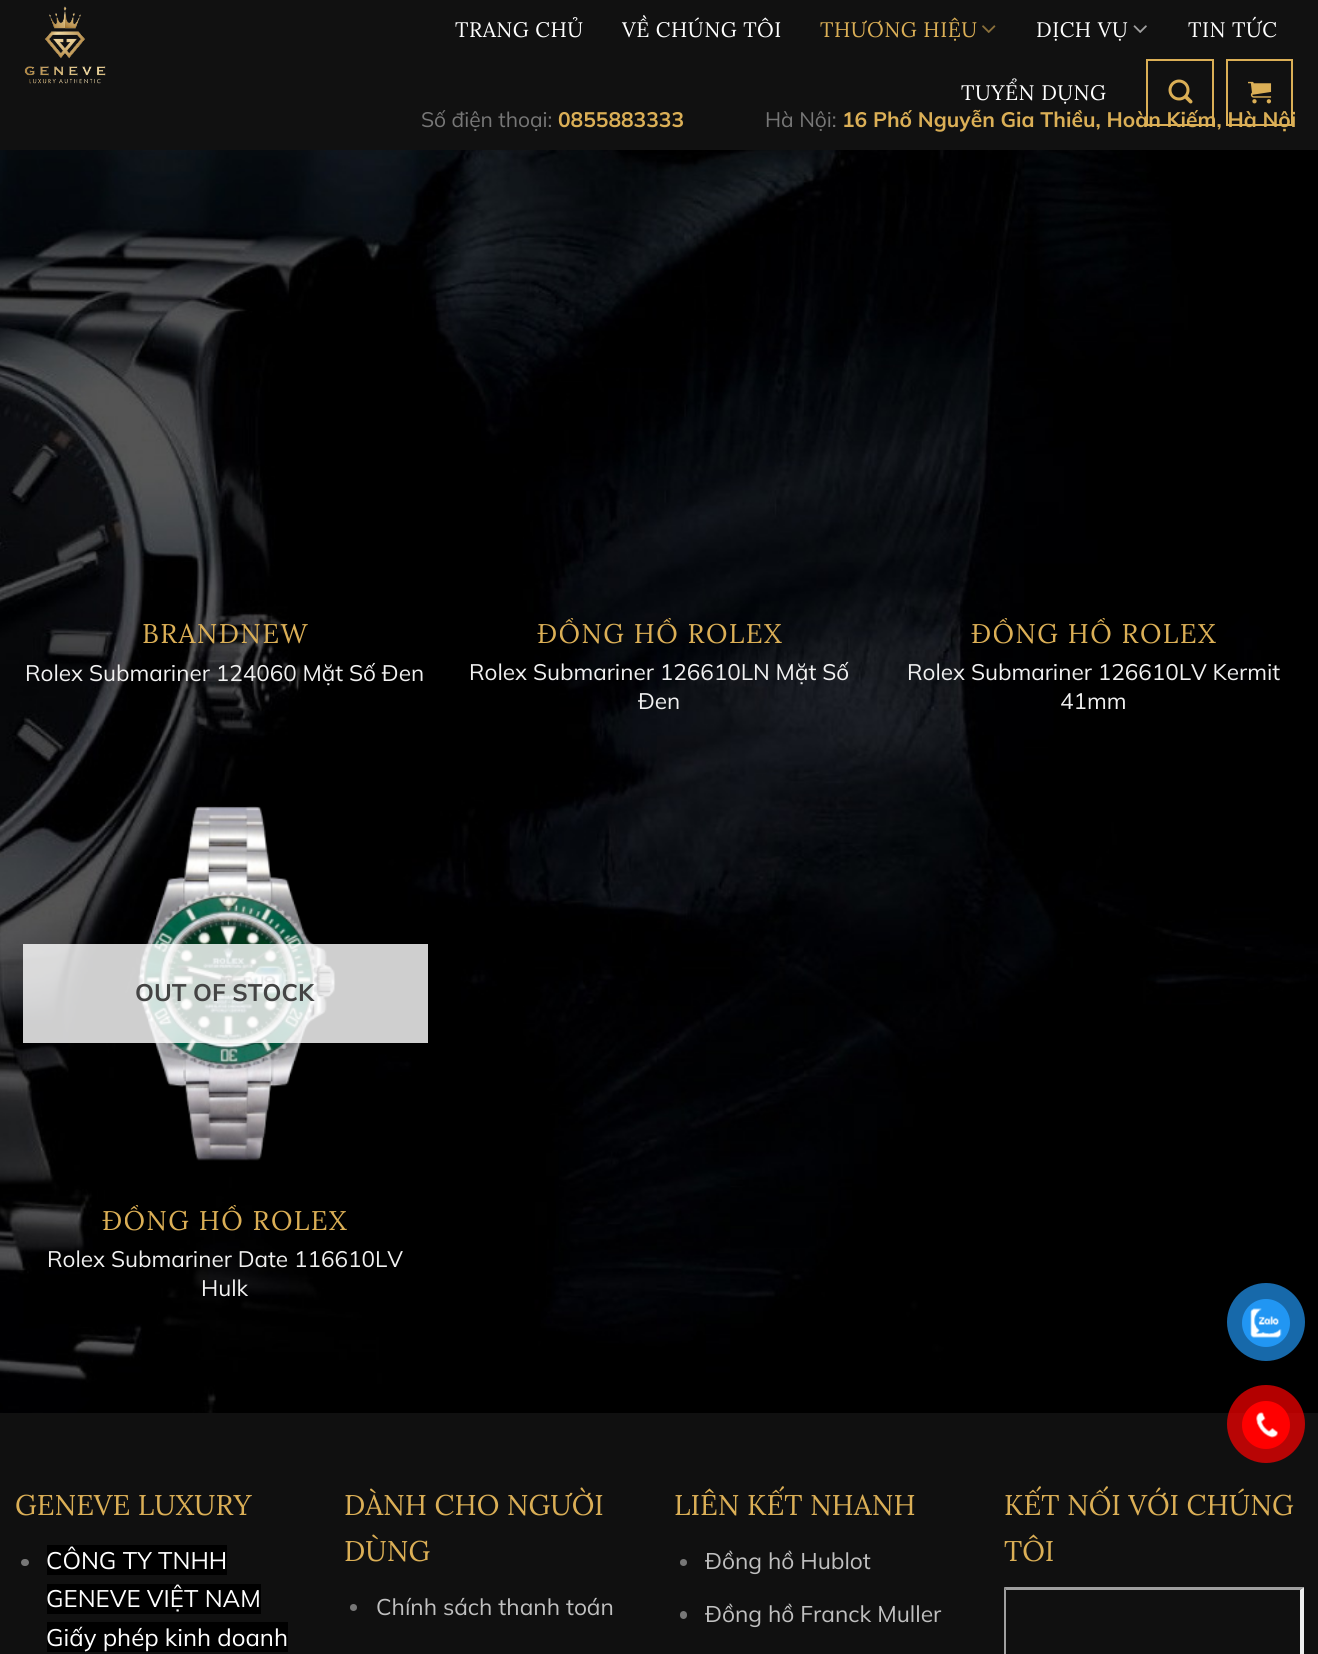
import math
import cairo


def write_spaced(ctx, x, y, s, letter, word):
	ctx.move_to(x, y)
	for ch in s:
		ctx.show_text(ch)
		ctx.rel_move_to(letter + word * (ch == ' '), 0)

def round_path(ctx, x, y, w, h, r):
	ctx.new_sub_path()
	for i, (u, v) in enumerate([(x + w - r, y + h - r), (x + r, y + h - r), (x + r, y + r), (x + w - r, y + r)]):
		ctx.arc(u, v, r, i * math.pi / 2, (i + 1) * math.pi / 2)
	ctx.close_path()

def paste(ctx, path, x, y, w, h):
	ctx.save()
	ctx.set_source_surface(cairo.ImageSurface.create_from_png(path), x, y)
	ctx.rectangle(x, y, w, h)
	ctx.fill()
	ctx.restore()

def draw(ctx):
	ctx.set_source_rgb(1, 1, 1)
	ctx.paint()
	ctx.set_source_rgb(0.067, 0.067, 0.067)
	ctx.rectangle(0, 0, 1318, 150)
	ctx.fill()
	paste(ctx, 'media/1.png', 24, 6, 82, 78)
	ctx.select_font_face('Lora')
	ctx.set_font_size(21)
	ctx.set_source_rgb(1, 1, 1)
	write_spaced(ctx, 455, 37, 'TRANG CHỦ', 0.5, 0)
	write_spaced(ctx, 622, 37, 'VỀ CHÚNG TÔI', 0.5, 0)
	ctx.set_source_rgb(0.859, 0.686, 0.337)
	write_spaced(ctx, 820, 37, 'THƯƠNG HIỆU', 0.5, 0)
	paste(ctx, 'media/2.png', 982, 25, 14, 8)
	ctx.set_source_rgb(1, 1, 1)
	write_spaced(ctx, 1036, 37, 'DỊCH VỤ', 0.5, 0)
	paste(ctx, 'media/3.png', 1133, 25, 14, 8)
	write_spaced(ctx, 1188, 37, 'TIN TỨC', 0.5, 0)
	write_spaced(ctx, 961, 100, 'TUYỂN DỤNG', 0.5, 0)
	ctx.rectangle(1147, 60, 66, 65)
	ctx.set_source_rgb(0.859, 0.686, 0.337)
	ctx.stroke()
	paste(ctx, 'media/4.png', 1168, 79, 25, 25)
	ctx.rectangle(1227, 60, 65, 65)
	ctx.stroke()
	paste(ctx, 'media/5.png', 1248, 81, 24, 23)
	ctx.select_font_face('Mulish')
	ctx.set_source_rgb(0.467, 0.467, 0.467)
	ctx.move_to(421, 127)
	ctx.show_text('Số điện thoại:')
	ctx.select_font_face('Mulish', cairo.FONT_SLANT_NORMAL, cairo.FONT_WEIGHT_BOLD)
	ctx.set_source_rgb(0.859, 0.686, 0.337)
	ctx.move_to(558, 127)
	ctx.show_text('0855883333')
	ctx.select_font_face('Mulish')
	ctx.set_source_rgb(0.467, 0.467, 0.467)
	ctx.move_to(765, 127)
	ctx.show_text('Hà Nội:')
	ctx.select_font_face('Mulish', cairo.FONT_SLANT_NORMAL, cairo.FONT_WEIGHT_BOLD)
	ctx.set_source_rgb(0.859, 0.686, 0.337)
	ctx.move_to(842, 127)
	ctx.show_text('16 Phố Nguyễn Gia Thiều, Hoàn Kiếm, Hà Nội')
	paste(ctx, 'media/6.png', 0, 150, 1318, 1263)
	ctx.select_font_face('Lora')
	ctx.set_font_size(27)
	write_spaced(ctx, 142, 643, 'BRANDNEW', 1.4, 0)
	ctx.select_font_face('Mulish')
	ctx.set_font_size(22.5)
	ctx.set_source_rgb(0.945, 0.945, 0.945)
	ctx.move_to(25, 681)
	ctx.show_text('Rolex Submariner 124060 Mặt Số Đen')
	ctx.save()
	ctx.rectangle(456, 618, 407, 33)
	ctx.clip()
	ctx.select_font_face('Lora')
	ctx.set_font_size(27)
	ctx.set_source_rgb(0.859, 0.686, 0.337)
	write_spaced(ctx, 537, 643, 'ĐỒNG HỒ ROLEX', 1.4, 0)
	ctx.restore()
	ctx.move_to(469, 680)
	ctx.show_text('Rolex Submariner 126610LN Mặt Số')
	ctx.move_to(638, 709)
	ctx.show_text('Đen')
	ctx.save()
	ctx.rectangle(891, 618, 405, 33)
	ctx.clip()
	ctx.select_font_face('Lora')
	ctx.set_font_size(27)
	ctx.set_source_rgb(0.859, 0.686, 0.337)
	write_spaced(ctx, 971, 643, 'ĐỒNG HỒ ROLEX', 1.4, 0)
	ctx.restore()
	ctx.move_to(907, 680)
	ctx.show_text('Rolex Submariner 126610LV Kermit')
	ctx.move_to(1060, 709)
	ctx.show_text('41mm')
	paste(ctx, 'media/7.png', 138, 806, 198, 355)
	ctx.set_source_rgba(1, 1, 1, 0.81)
	ctx.rectangle(23, 944, 405, 99)
	ctx.fill()
	ctx.select_font_face('Mulish', cairo.FONT_SLANT_NORMAL, cairo.FONT_WEIGHT_BOLD)
	ctx.set_font_size(24)
	ctx.set_source_rgb(0.267, 0.267, 0.267)
	ctx.move_to(135, 1001)
	ctx.show_text('OUT OF STOCK')
	ctx.save()
	ctx.rectangle(23, 1205, 405, 33)
	ctx.clip()
	ctx.select_font_face('Lora')
	ctx.set_font_size(27)
	ctx.set_source_rgb(0.859, 0.686, 0.337)
	write_spaced(ctx, 102, 1230, 'ĐỒNG HỒ ROLEX', 1.4, 0)
	ctx.restore()
	ctx.select_font_face('Mulish')
	ctx.set_font_size(22.5)
	ctx.set_source_rgb(0.945, 0.945, 0.945)
	ctx.move_to(47, 1267)
	ctx.show_text('Rolex Submariner Date 116610LV')
	ctx.move_to(201, 1296)
	ctx.show_text('Hulk')
	ctx.set_source_rgb(0.063, 0.063, 0.063)
	ctx.rectangle(0, 1413, 1318, 241)
	ctx.fill()
	ctx.select_font_face('Lora')
	ctx.set_font_size(28.5)
	ctx.set_source_rgb(0.859, 0.686, 0.337)
	ctx.move_to(15, 1515)
	ctx.show_text('GENEVE LUXURY')
	ctx.set_source_rgb(0.467, 0.467, 0.467)
	round_path(ctx, 21, 1559, 8, 7, 3.5)
	ctx.fill()
	ctx.set_source_rgb(0, 0, 0)
	ctx.rectangle(47, 1545, 180, 30)
	ctx.fill()
	ctx.select_font_face('Mulish')
	ctx.set_font_size(24)
	ctx.set_source_rgb(1, 1, 1)
	ctx.move_to(46, 1569)
	ctx.show_text('CÔNG TY TNHH')
	ctx.set_source_rgb(0, 0, 0)
	ctx.rectangle(47, 1584, 214, 30)
	ctx.fill()
	ctx.set_source_rgb(1, 1, 1)
	ctx.move_to(46, 1607)
	ctx.show_text('GENEVE VIỆT NAM')
	ctx.set_source_rgb(0, 0, 0)
	ctx.rectangle(47, 1622, 241, 30)
	ctx.fill()
	ctx.set_source_rgb(1, 1, 1)
	ctx.move_to(46, 1646)
	ctx.show_text('Giấy phép kinh doanh')
	ctx.select_font_face('Lora')
	ctx.set_font_size(28.5)
	ctx.set_source_rgb(0.859, 0.686, 0.337)
	ctx.move_to(344, 1515)
	ctx.show_text('DÀNH CHO NGƯỜI')
	ctx.move_to(344, 1561)
	ctx.show_text('DÙNG')
	ctx.set_source_rgb(0.467, 0.467, 0.467)
	ctx.new_path()
	ctx.arc(353.5, 1607.5, 3.5, 0, 2 * math.pi)
	ctx.fill()
	ctx.select_font_face('Mulish')
	ctx.set_font_size(22.75)
	ctx.set_source_rgb(0.753, 0.753, 0.753)
	ctx.move_to(376, 1615)
	ctx.show_text('Chính sách thanh toán')
	ctx.select_font_face('Lora')
	ctx.set_font_size(28.5)
	ctx.set_source_rgb(0.859, 0.686, 0.337)
	ctx.move_to(674, 1515)
	ctx.show_text('LIÊN KẾT NHANH')
	ctx.set_source_rgb(0.467, 0.467, 0.467)
	ctx.new_path()
	ctx.arc(683.5, 1562.5, 3.5, 0, 2 * math.pi)
	ctx.fill()
	ctx.select_font_face('Mulish')
	ctx.set_font_size(22.75)
	ctx.set_source_rgb(0.753, 0.753, 0.753)
	ctx.move_to(705, 1569)
	ctx.show_text('Đồng hồ Hublot')
	ctx.set_source_rgb(0.467, 0.467, 0.467)
	round_path(ctx, 680, 1611, 7, 8, 3.5)
	ctx.fill()
	ctx.set_source_rgb(0.753, 0.753, 0.753)
	ctx.move_to(705, 1622)
	ctx.show_text('Đồng hồ Franck Muller')
	ctx.select_font_face('Lora')
	ctx.set_font_size(28.5)
	ctx.set_source_rgb(0.859, 0.686, 0.337)
	ctx.move_to(1004, 1515)
	ctx.show_text('KẾT NỐI VỚI CHÚNG')
	ctx.move_to(1004, 1561)
	ctx.show_text('TÔI')
	ctx.set_source_rgb(0.624, 0.624, 0.624)
	ctx.new_path()
	ctx.move_to(1004, 1587)
	ctx.line_to(1304, 1587)
	ctx.line_to(1300, 1590)
	ctx.line_to(1006, 1590)
	ctx.close_path()
	ctx.fill()
	ctx.new_path()
	ctx.move_to(1004, 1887)
	ctx.line_to(1004, 1587)
	ctx.line_to(1006, 1590)
	ctx.line_to(1006, 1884)
	ctx.close_path()
	ctx.fill()
	ctx.set_source_rgb(0.933, 0.933, 0.933)
	ctx.new_path()
	ctx.move_to(1304, 1587)
	ctx.line_to(1304, 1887)
	ctx.line_to(1300, 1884)
	ctx.line_to(1300, 1590)
	ctx.close_path()
	ctx.fill()
	ctx.set_source_rgb(0.09, 0.412, 0.667)
	ctx.arc(1266, 1322, 39, 0, 2 * math.pi)
	ctx.fill()
	ctx.set_source_rgb(0.129, 0.588, 0.953)
	ctx.arc(1266, 1323, 24, 0, 2 * math.pi)
	ctx.fill()
	paste(ctx, 'media/8.png', 1250, 1308, 32, 30)
	ctx.set_source_rgba(1, 0, 0, 0.7)
	ctx.arc(1266, 1424, 39, 0, 2 * math.pi)
	ctx.fill()
	ctx.set_source_rgb(1, 0, 0)
	ctx.arc(1266, 1425, 24, 0, 2 * math.pi)
	ctx.fill()
	paste(ctx, 'media/9.png', 1256, 1412, 22, 26)


surface = cairo.ImageSurface(cairo.FORMAT_RGB24, 1318, 1654)
ctx = cairo.Context(surface)
options = cairo.FontOptions()
options.set_hint_metrics(cairo.HINT_METRICS_OFF)
options.set_hint_style(cairo.HINT_STYLE_NONE)
ctx.set_font_options(options)
ctx.set_miter_limit(4)
draw(ctx)
surface.write_to_png('image.png')
